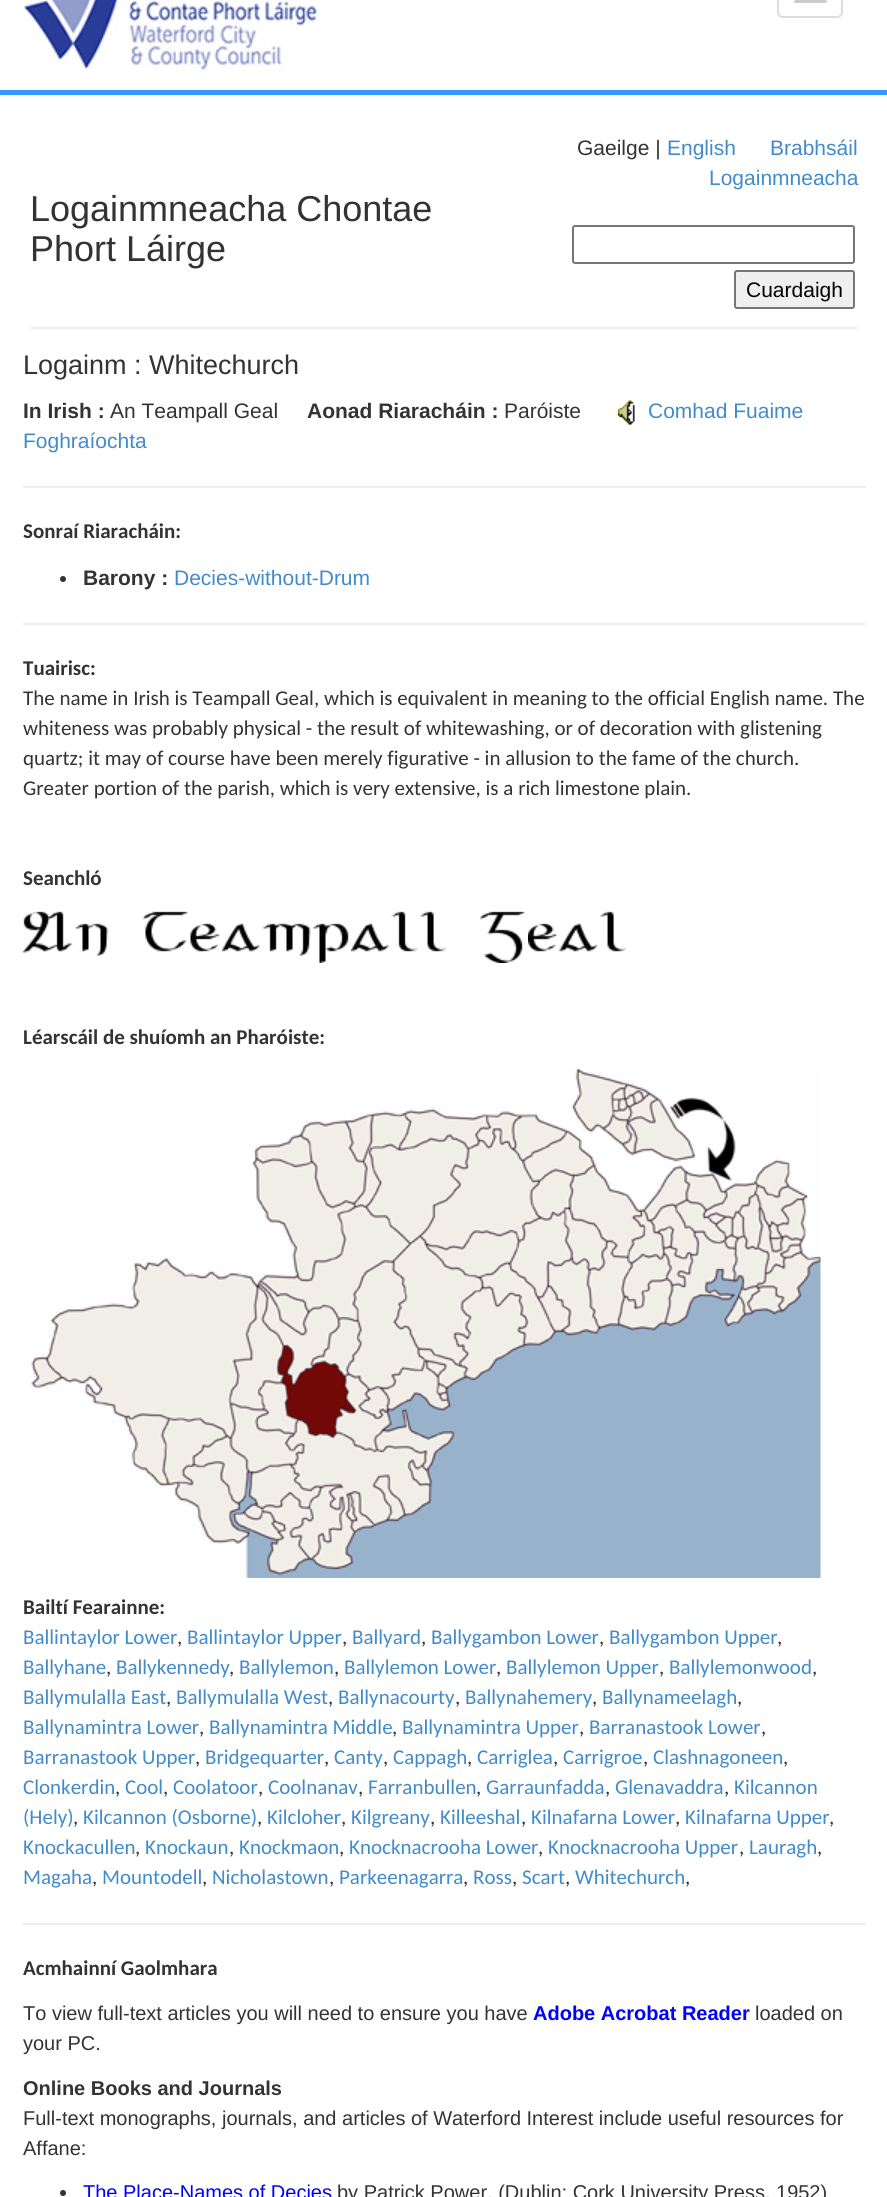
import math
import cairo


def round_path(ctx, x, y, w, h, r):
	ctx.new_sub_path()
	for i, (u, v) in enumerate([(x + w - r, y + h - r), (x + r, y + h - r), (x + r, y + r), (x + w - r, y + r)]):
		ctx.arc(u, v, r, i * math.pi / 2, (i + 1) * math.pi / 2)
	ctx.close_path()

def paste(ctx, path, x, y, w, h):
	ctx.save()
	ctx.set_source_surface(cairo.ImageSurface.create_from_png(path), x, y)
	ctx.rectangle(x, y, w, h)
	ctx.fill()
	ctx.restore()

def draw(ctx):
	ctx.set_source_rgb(1, 1, 1)
	ctx.paint()
	ctx.set_source_rgb(0.2, 0.6, 1)
	ctx.rectangle(0, 90, 887, 5)
	ctx.fill()
	paste(ctx, 'media/1.png', 23, 0, 294, 71)
	round_path(ctx, 778, -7, 64, 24, 5)
	ctx.set_source_rgb(0.867, 0.867, 0.867)
	ctx.stroke()
	ctx.set_source_rgb(0.8, 0.8, 0.8)
	round_path(ctx, 794, 0, 33, 3, 1.5)
	ctx.fill()
	ctx.select_font_face('Liberation Sans')
	ctx.set_font_size(36)
	ctx.set_source_rgb(0.2, 0.2, 0.2)
	ctx.move_to(30, 221)
	ctx.show_text('Logainmneacha Chontae')
	ctx.move_to(30, 261)
	ctx.show_text('Phort Láirge')
	ctx.set_font_size(21)
	ctx.move_to(577, 155)
	ctx.show_text('Gaeilge |')
	ctx.set_source_rgb(0.259, 0.545, 0.792)
	for x, y, s in [
		(667, 155, 'English'),
		(770, 155, 'Brabhsáil'),
		(709, 185, 'Logainmneacha'),
	]:
		ctx.move_to(x, y)
		ctx.show_text(s)
	round_path(ctx, 573, 226, 281, 37, 2)
	ctx.set_source_rgb(0.463, 0.463, 0.463)
	ctx.stroke()
	ctx.set_source_rgb(0.937, 0.937, 0.937)
	round_path(ctx, 735, 271, 119, 37, 2)
	ctx.fill_preserve()
	ctx.set_source_rgb(0.463, 0.463, 0.463)
	ctx.stroke()
	ctx.set_source_rgb(0, 0, 0)
	ctx.move_to(746, 297)
	ctx.show_text('Cuardaigh')
	ctx.set_source_rgb(0.933, 0.933, 0.933)
	ctx.rectangle(30, 327, 828, 2)
	ctx.fill()
	ctx.set_font_size(27)
	ctx.set_source_rgb(0.2, 0.2, 0.2)
	ctx.move_to(23, 374)
	ctx.show_text('Logainm : Whitechurch')
	ctx.select_font_face('Liberation Sans', cairo.FONT_SLANT_NORMAL, cairo.FONT_WEIGHT_BOLD)
	ctx.set_font_size(21)
	ctx.move_to(23, 418)
	ctx.show_text('In Irish :')
	ctx.select_font_face('Liberation Sans')
	ctx.move_to(110, 418)
	ctx.show_text('An Teampall Geal')
	ctx.select_font_face('Liberation Sans', cairo.FONT_SLANT_NORMAL, cairo.FONT_WEIGHT_BOLD)
	ctx.move_to(307, 418)
	ctx.show_text('Aonad Riaracháin :')
	ctx.select_font_face('Liberation Sans')
	ctx.move_to(504, 418)
	ctx.show_text('Paróiste')
	paste(ctx, 'media/2.png', 618, 400, 17, 25)
	ctx.set_source_rgb(0.259, 0.545, 0.792)
	ctx.move_to(648, 418)
	ctx.show_text('Comhad Fuaime')
	ctx.move_to(23, 448)
	ctx.show_text('Foghraíochta')
	ctx.set_source_rgb(0.933, 0.933, 0.933)
	ctx.rectangle(23, 486, 843, 2)
	ctx.fill()
	ctx.select_font_face('Carlito', cairo.FONT_SLANT_NORMAL, cairo.FONT_WEIGHT_BOLD)
	ctx.set_source_rgb(0.2, 0.2, 0.2)
	ctx.move_to(23, 538)
	ctx.show_text('Sonraí Riaracháin:')
	ctx.new_path()
	ctx.arc(63, 579, 3, 0, 2 * math.pi)
	ctx.fill()
	ctx.select_font_face('Liberation Sans', cairo.FONT_SLANT_NORMAL, cairo.FONT_WEIGHT_BOLD)
	ctx.move_to(83, 585)
	ctx.show_text('Barony :')
	ctx.select_font_face('Liberation Sans')
	ctx.set_source_rgb(0.259, 0.545, 0.792)
	ctx.move_to(174, 585)
	ctx.show_text('Decies-without-Drum')
	ctx.set_source_rgb(0.933, 0.933, 0.933)
	ctx.rectangle(23, 623, 843, 2)
	ctx.fill()
	ctx.select_font_face('Carlito', cairo.FONT_SLANT_NORMAL, cairo.FONT_WEIGHT_BOLD)
	ctx.set_source_rgb(0.2, 0.2, 0.2)
	ctx.move_to(23, 675)
	ctx.show_text('Tuairisc:')
	ctx.select_font_face('Carlito')
	for x, y, s in [
		(23, 705, 'The name in Irish is Teampall Geal, which is equivalent in meaning to the official English name. The'),
		(23, 735, 'whiteness was probably physical - the result of whitewashing, or of decoration with glistening'),
		(23, 765, 'quartz; it may of course have been merely figurative - in allusion to the fame of the church.'),
		(23, 795, 'Greater portion of the parish, which is very extensive, is a rich limestone plain.'),
	]:
		ctx.move_to(x, y)
		ctx.show_text(s)
	ctx.select_font_face('Carlito', cairo.FONT_SLANT_NORMAL, cairo.FONT_WEIGHT_BOLD)
	ctx.move_to(23, 885)
	ctx.show_text('Seanchló')
	paste(ctx, 'media/3.png', 22, 911, 51, 42)
	paste(ctx, 'media/4.png', 75, 923, 34, 33)
	paste(ctx, 'media/5.png', 142, 911, 46, 41)
	paste(ctx, 'media/6.png', 190, 923, 30, 29)
	paste(ctx, 'media/7.png', 222, 923, 41, 29)
	paste(ctx, 'media/8.png', 262, 923, 49, 33)
	paste(ctx, 'media/9.png', 313, 923, 36, 40)
	paste(ctx, 'media/10.png', 351, 923, 41, 29)
	paste(ctx, 'media/11.png', 391, 911, 27, 41)
	paste(ctx, 'media/12.png', 420, 911, 26, 41)
	paste(ctx, 'media/13.png', 480, 911, 46, 52)
	paste(ctx, 'media/14.png', 528, 923, 29, 29)
	paste(ctx, 'media/15.png', 559, 923, 41, 29)
	paste(ctx, 'media/12.png', 600, 911, 26, 41)
	ctx.move_to(23, 1044)
	ctx.show_text('Léarscáil de shuíomh an Pharóiste:')
	paste(ctx, 'media/16.png', 31, 1068, 790, 510)
	ctx.move_to(23, 1614)
	ctx.show_text('Bailtí Fearainne:')
	ctx.select_font_face('Carlito')
	ctx.set_source_rgb(0.259, 0.545, 0.792)
	ctx.move_to(23, 1644)
	ctx.show_text('Ballintaylor Lower')
	ctx.set_source_rgb(0.2, 0.2, 0.2)
	ctx.move_to(177, 1644)
	ctx.show_text(',')
	ctx.set_source_rgb(0.259, 0.545, 0.792)
	ctx.move_to(187, 1644)
	ctx.show_text('Ballintaylor Upper')
	ctx.set_source_rgb(0.2, 0.2, 0.2)
	ctx.move_to(342, 1644)
	ctx.show_text(',')
	ctx.set_source_rgb(0.259, 0.545, 0.792)
	ctx.move_to(352, 1644)
	ctx.show_text('Ballyard')
	ctx.set_source_rgb(0.2, 0.2, 0.2)
	ctx.move_to(421, 1644)
	ctx.show_text(',')
	ctx.set_source_rgb(0.259, 0.545, 0.792)
	ctx.move_to(431, 1644)
	ctx.show_text('Ballygambon Lower')
	ctx.set_source_rgb(0.2, 0.2, 0.2)
	ctx.move_to(599, 1644)
	ctx.show_text(',')
	ctx.set_source_rgb(0.259, 0.545, 0.792)
	ctx.move_to(609, 1644)
	ctx.show_text('Ballygambon Upper')
	ctx.set_source_rgb(0.2, 0.2, 0.2)
	ctx.move_to(777, 1644)
	ctx.show_text(',')
	ctx.set_source_rgb(0.259, 0.545, 0.792)
	ctx.move_to(23, 1674)
	ctx.show_text('Ballyhane')
	ctx.set_source_rgb(0.2, 0.2, 0.2)
	ctx.move_to(106, 1674)
	ctx.show_text(',')
	ctx.set_source_rgb(0.259, 0.545, 0.792)
	ctx.move_to(116, 1674)
	ctx.show_text('Ballykennedy')
	ctx.set_source_rgb(0.2, 0.2, 0.2)
	ctx.move_to(229, 1674)
	ctx.show_text(',')
	ctx.set_source_rgb(0.259, 0.545, 0.792)
	ctx.move_to(239, 1674)
	ctx.show_text('Ballylemon')
	ctx.set_source_rgb(0.2, 0.2, 0.2)
	ctx.move_to(334, 1674)
	ctx.show_text(',')
	ctx.set_source_rgb(0.259, 0.545, 0.792)
	ctx.move_to(344, 1674)
	ctx.show_text('Ballylemon Lower')
	ctx.set_source_rgb(0.2, 0.2, 0.2)
	ctx.move_to(496, 1674)
	ctx.show_text(',')
	ctx.set_source_rgb(0.259, 0.545, 0.792)
	ctx.move_to(506, 1674)
	ctx.show_text('Ballylemon Upper')
	ctx.set_source_rgb(0.2, 0.2, 0.2)
	ctx.move_to(659, 1674)
	ctx.show_text(',')
	ctx.set_source_rgb(0.259, 0.545, 0.792)
	ctx.move_to(669, 1674)
	ctx.show_text('Ballylemonwood')
	ctx.set_source_rgb(0.2, 0.2, 0.2)
	ctx.move_to(812, 1674)
	ctx.show_text(',')
	ctx.set_source_rgb(0.259, 0.545, 0.792)
	ctx.move_to(23, 1704)
	ctx.show_text('Ballymulalla East')
	ctx.set_source_rgb(0.2, 0.2, 0.2)
	ctx.move_to(166, 1704)
	ctx.show_text(',')
	ctx.set_source_rgb(0.259, 0.545, 0.792)
	ctx.move_to(176, 1704)
	ctx.show_text('Ballymulalla West')
	ctx.set_source_rgb(0.2, 0.2, 0.2)
	ctx.move_to(328, 1704)
	ctx.show_text(',')
	ctx.set_source_rgb(0.259, 0.545, 0.792)
	ctx.move_to(338, 1704)
	ctx.show_text('Ballynacourty')
	ctx.set_source_rgb(0.2, 0.2, 0.2)
	ctx.move_to(455, 1704)
	ctx.show_text(',')
	ctx.set_source_rgb(0.259, 0.545, 0.792)
	ctx.move_to(465, 1704)
	ctx.show_text('Ballynahemery')
	ctx.set_source_rgb(0.2, 0.2, 0.2)
	ctx.move_to(592, 1704)
	ctx.show_text(',')
	ctx.set_source_rgb(0.259, 0.545, 0.792)
	ctx.move_to(602, 1704)
	ctx.show_text('Ballynameelagh')
	ctx.set_source_rgb(0.2, 0.2, 0.2)
	ctx.move_to(737, 1704)
	ctx.show_text(',')
	ctx.set_source_rgb(0.259, 0.545, 0.792)
	ctx.move_to(23, 1734)
	ctx.show_text('Ballynamintra Lower')
	ctx.set_source_rgb(0.2, 0.2, 0.2)
	ctx.move_to(199, 1734)
	ctx.show_text(',')
	ctx.set_source_rgb(0.259, 0.545, 0.792)
	ctx.move_to(209, 1734)
	ctx.show_text('Ballynamintra Middle')
	ctx.set_source_rgb(0.2, 0.2, 0.2)
	ctx.move_to(392, 1734)
	ctx.show_text(',')
	ctx.set_source_rgb(0.259, 0.545, 0.792)
	ctx.move_to(402, 1734)
	ctx.show_text('Ballynamintra Upper')
	ctx.set_source_rgb(0.2, 0.2, 0.2)
	ctx.move_to(579, 1734)
	ctx.show_text(',')
	ctx.set_source_rgb(0.259, 0.545, 0.792)
	ctx.move_to(589, 1734)
	ctx.show_text('Barranastook Lower')
	ctx.set_source_rgb(0.2, 0.2, 0.2)
	ctx.move_to(761, 1734)
	ctx.show_text(',')
	ctx.set_source_rgb(0.259, 0.545, 0.792)
	ctx.move_to(23, 1764)
	ctx.show_text('Barranastook Upper')
	ctx.set_source_rgb(0.2, 0.2, 0.2)
	ctx.move_to(195, 1764)
	ctx.show_text(',')
	ctx.set_source_rgb(0.259, 0.545, 0.792)
	ctx.move_to(205, 1764)
	ctx.show_text('Bridgequarter')
	ctx.set_source_rgb(0.2, 0.2, 0.2)
	ctx.move_to(324, 1764)
	ctx.show_text(',')
	ctx.set_source_rgb(0.259, 0.545, 0.792)
	ctx.move_to(334, 1764)
	ctx.show_text('Canty')
	ctx.set_source_rgb(0.2, 0.2, 0.2)
	ctx.move_to(383, 1764)
	ctx.show_text(',')
	ctx.set_source_rgb(0.259, 0.545, 0.792)
	ctx.move_to(393, 1764)
	ctx.show_text('Cappagh')
	ctx.set_source_rgb(0.2, 0.2, 0.2)
	ctx.move_to(467, 1764)
	ctx.show_text(',')
	ctx.set_source_rgb(0.259, 0.545, 0.792)
	ctx.move_to(477, 1764)
	ctx.show_text('Carriglea')
	ctx.set_source_rgb(0.2, 0.2, 0.2)
	ctx.move_to(553, 1764)
	ctx.show_text(',')
	ctx.set_source_rgb(0.259, 0.545, 0.792)
	ctx.move_to(563, 1764)
	ctx.show_text('Carrigroe')
	ctx.set_source_rgb(0.2, 0.2, 0.2)
	ctx.move_to(643, 1764)
	ctx.show_text(',')
	ctx.set_source_rgb(0.259, 0.545, 0.792)
	ctx.move_to(653, 1764)
	ctx.show_text('Clashnagoneen')
	ctx.set_source_rgb(0.2, 0.2, 0.2)
	ctx.move_to(783, 1764)
	ctx.show_text(',')
	ctx.set_source_rgb(0.259, 0.545, 0.792)
	ctx.move_to(23, 1794)
	ctx.show_text('Clonkerdin')
	ctx.set_source_rgb(0.2, 0.2, 0.2)
	ctx.move_to(115, 1794)
	ctx.show_text(',')
	ctx.set_source_rgb(0.259, 0.545, 0.792)
	ctx.move_to(125, 1794)
	ctx.show_text('Cool')
	ctx.set_source_rgb(0.2, 0.2, 0.2)
	ctx.move_to(163, 1794)
	ctx.show_text(',')
	ctx.set_source_rgb(0.259, 0.545, 0.792)
	ctx.move_to(173, 1794)
	ctx.show_text('Coolatoor')
	ctx.set_source_rgb(0.2, 0.2, 0.2)
	ctx.move_to(258, 1794)
	ctx.show_text(',')
	ctx.set_source_rgb(0.259, 0.545, 0.792)
	ctx.move_to(268, 1794)
	ctx.show_text('Coolnanav')
	ctx.set_source_rgb(0.2, 0.2, 0.2)
	ctx.move_to(358, 1794)
	ctx.show_text(',')
	ctx.set_source_rgb(0.259, 0.545, 0.792)
	ctx.move_to(368, 1794)
	ctx.show_text('Farranbullen')
	ctx.set_source_rgb(0.2, 0.2, 0.2)
	ctx.move_to(476, 1794)
	ctx.show_text(',')
	ctx.set_source_rgb(0.259, 0.545, 0.792)
	ctx.move_to(486, 1794)
	ctx.show_text('Garraunfadda')
	ctx.set_source_rgb(0.2, 0.2, 0.2)
	ctx.move_to(605, 1794)
	ctx.show_text(',')
	ctx.set_source_rgb(0.259, 0.545, 0.792)
	ctx.move_to(615, 1794)
	ctx.show_text('Glenavaddra')
	ctx.set_source_rgb(0.2, 0.2, 0.2)
	ctx.move_to(724, 1794)
	ctx.show_text(',')
	ctx.set_source_rgb(0.259, 0.545, 0.792)
	ctx.move_to(734, 1794)
	ctx.show_text('Kilcannon')
	ctx.move_to(23, 1824)
	ctx.show_text('(Hely)')
	ctx.set_source_rgb(0.2, 0.2, 0.2)
	ctx.move_to(73, 1824)
	ctx.show_text(',')
	ctx.set_source_rgb(0.259, 0.545, 0.792)
	ctx.move_to(83, 1824)
	ctx.show_text('Kilcannon (Osborne)')
	ctx.set_source_rgb(0.2, 0.2, 0.2)
	ctx.move_to(257, 1824)
	ctx.show_text(',')
	ctx.set_source_rgb(0.259, 0.545, 0.792)
	ctx.move_to(267, 1824)
	ctx.show_text('Kilcloher')
	ctx.set_source_rgb(0.2, 0.2, 0.2)
	ctx.move_to(341, 1824)
	ctx.show_text(',')
	ctx.set_source_rgb(0.259, 0.545, 0.792)
	ctx.move_to(351, 1824)
	ctx.show_text('Kilgreany')
	ctx.set_source_rgb(0.2, 0.2, 0.2)
	ctx.move_to(430, 1824)
	ctx.show_text(',')
	ctx.set_source_rgb(0.259, 0.545, 0.792)
	ctx.move_to(440, 1824)
	ctx.show_text('Killeeshal')
	ctx.set_source_rgb(0.2, 0.2, 0.2)
	ctx.move_to(521, 1824)
	ctx.show_text(',')
	ctx.set_source_rgb(0.259, 0.545, 0.792)
	ctx.move_to(531, 1824)
	ctx.show_text('Kilnafarna Lower')
	ctx.set_source_rgb(0.2, 0.2, 0.2)
	ctx.move_to(675, 1824)
	ctx.show_text(',')
	ctx.set_source_rgb(0.259, 0.545, 0.792)
	ctx.move_to(685, 1824)
	ctx.show_text('Kilnafarna Upper')
	ctx.set_source_rgb(0.2, 0.2, 0.2)
	ctx.move_to(829, 1824)
	ctx.show_text(',')
	ctx.set_source_rgb(0.259, 0.545, 0.792)
	ctx.move_to(23, 1854)
	ctx.show_text('Knockacullen')
	ctx.set_source_rgb(0.2, 0.2, 0.2)
	ctx.move_to(135, 1854)
	ctx.show_text(',')
	ctx.set_source_rgb(0.259, 0.545, 0.792)
	ctx.move_to(145, 1854)
	ctx.show_text('Knockaun')
	ctx.set_source_rgb(0.2, 0.2, 0.2)
	ctx.move_to(229, 1854)
	ctx.show_text(',')
	ctx.set_source_rgb(0.259, 0.545, 0.792)
	ctx.move_to(239, 1854)
	ctx.show_text('Knockmaon')
	ctx.set_source_rgb(0.2, 0.2, 0.2)
	ctx.move_to(339, 1854)
	ctx.show_text(',')
	ctx.set_source_rgb(0.259, 0.545, 0.792)
	ctx.move_to(349, 1854)
	ctx.show_text('Knocknacrooha Lower')
	ctx.set_source_rgb(0.2, 0.2, 0.2)
	ctx.move_to(538, 1854)
	ctx.show_text(',')
	ctx.set_source_rgb(0.259, 0.545, 0.792)
	ctx.move_to(548, 1854)
	ctx.show_text('Knocknacrooha Upper')
	ctx.set_source_rgb(0.2, 0.2, 0.2)
	ctx.move_to(739, 1854)
	ctx.show_text(',')
	ctx.set_source_rgb(0.259, 0.545, 0.792)
	ctx.move_to(749, 1854)
	ctx.show_text('Lauragh')
	ctx.set_source_rgb(0.2, 0.2, 0.2)
	ctx.move_to(817, 1854)
	ctx.show_text(',')
	ctx.set_source_rgb(0.259, 0.545, 0.792)
	ctx.move_to(23, 1884)
	ctx.show_text('Magaha')
	ctx.set_source_rgb(0.2, 0.2, 0.2)
	ctx.move_to(92, 1884)
	ctx.show_text(',')
	ctx.set_source_rgb(0.259, 0.545, 0.792)
	ctx.move_to(102, 1884)
	ctx.show_text('Mountodell')
	ctx.set_source_rgb(0.2, 0.2, 0.2)
	ctx.move_to(202, 1884)
	ctx.show_text(',')
	ctx.set_source_rgb(0.259, 0.545, 0.792)
	ctx.move_to(212, 1884)
	ctx.show_text('Nicholastown')
	ctx.set_source_rgb(0.2, 0.2, 0.2)
	ctx.move_to(329, 1884)
	ctx.show_text(',')
	ctx.set_source_rgb(0.259, 0.545, 0.792)
	ctx.move_to(339, 1884)
	ctx.show_text('Parkeenagarra')
	ctx.set_source_rgb(0.2, 0.2, 0.2)
	ctx.move_to(463, 1884)
	ctx.show_text(',')
	ctx.set_source_rgb(0.259, 0.545, 0.792)
	ctx.move_to(473, 1884)
	ctx.show_text('Ross')
	ctx.set_source_rgb(0.2, 0.2, 0.2)
	ctx.move_to(512, 1884)
	ctx.show_text(',')
	ctx.set_source_rgb(0.259, 0.545, 0.792)
	ctx.move_to(522, 1884)
	ctx.show_text('Scart')
	ctx.set_source_rgb(0.2, 0.2, 0.2)
	ctx.move_to(565, 1884)
	ctx.show_text(',')
	ctx.set_source_rgb(0.259, 0.545, 0.792)
	ctx.move_to(575, 1884)
	ctx.show_text('Whitechurch')
	ctx.set_source_rgb(0.2, 0.2, 0.2)
	ctx.move_to(685, 1884)
	ctx.show_text(',')
	ctx.set_source_rgb(0.933, 0.933, 0.933)
	ctx.rectangle(23, 1923, 843, 2)
	ctx.fill()
	ctx.select_font_face('Carlito', cairo.FONT_SLANT_NORMAL, cairo.FONT_WEIGHT_BOLD)
	ctx.set_source_rgb(0.2, 0.2, 0.2)
	ctx.move_to(23, 1975)
	ctx.show_text('Acmhainní Gaolmhara')
	ctx.select_font_face('Liberation Sans')
	ctx.set_font_size(20)
	ctx.move_to(23, 2020)
	ctx.show_text('To view full-text articles you will need to ensure you have')
	ctx.select_font_face('Liberation Sans', cairo.FONT_SLANT_NORMAL, cairo.FONT_WEIGHT_BOLD)
	ctx.set_source_rgb(0, 0, 1)
	ctx.move_to(533, 2020)
	ctx.show_text('Adobe Acrobat Reader')
	ctx.select_font_face('Liberation Sans')
	ctx.set_source_rgb(0.2, 0.2, 0.2)
	ctx.move_to(755, 2020)
	ctx.show_text('loaded on')
	ctx.move_to(23, 2050)
	ctx.show_text('your PC.')
	ctx.select_font_face('Liberation Sans', cairo.FONT_SLANT_NORMAL, cairo.FONT_WEIGHT_BOLD)
	ctx.move_to(23, 2095)
	ctx.show_text('Online Books and Journals')
	ctx.select_font_face('Liberation Sans')
	ctx.move_to(23, 2125)
	ctx.show_text('Full-text monographs, journals, and articles of Waterford Interest include useful resources for')
	ctx.move_to(23, 2155)
	ctx.show_text('Affane:')
	ctx.new_path()
	ctx.arc(63, 2193, 3, 0, 2 * math.pi)
	ctx.fill()
	ctx.set_source_rgb(0, 0, 1)
	ctx.move_to(83, 2199)
	ctx.show_text('The Place-Names of Decies')
	ctx.set_source_rgb(0.2, 0.2, 0.2)
	ctx.move_to(337, 2199)
	ctx.show_text('by Patrick Power. (Dublin; Cork University Press, 1952)')


surface = cairo.ImageSurface(cairo.FORMAT_RGB24, 887, 2197)
ctx = cairo.Context(surface)
options = cairo.FontOptions()
options.set_hint_metrics(cairo.HINT_METRICS_OFF)
options.set_hint_style(cairo.HINT_STYLE_NONE)
ctx.set_font_options(options)
ctx.set_miter_limit(4)
draw(ctx)
surface.write_to_png('image.png')
